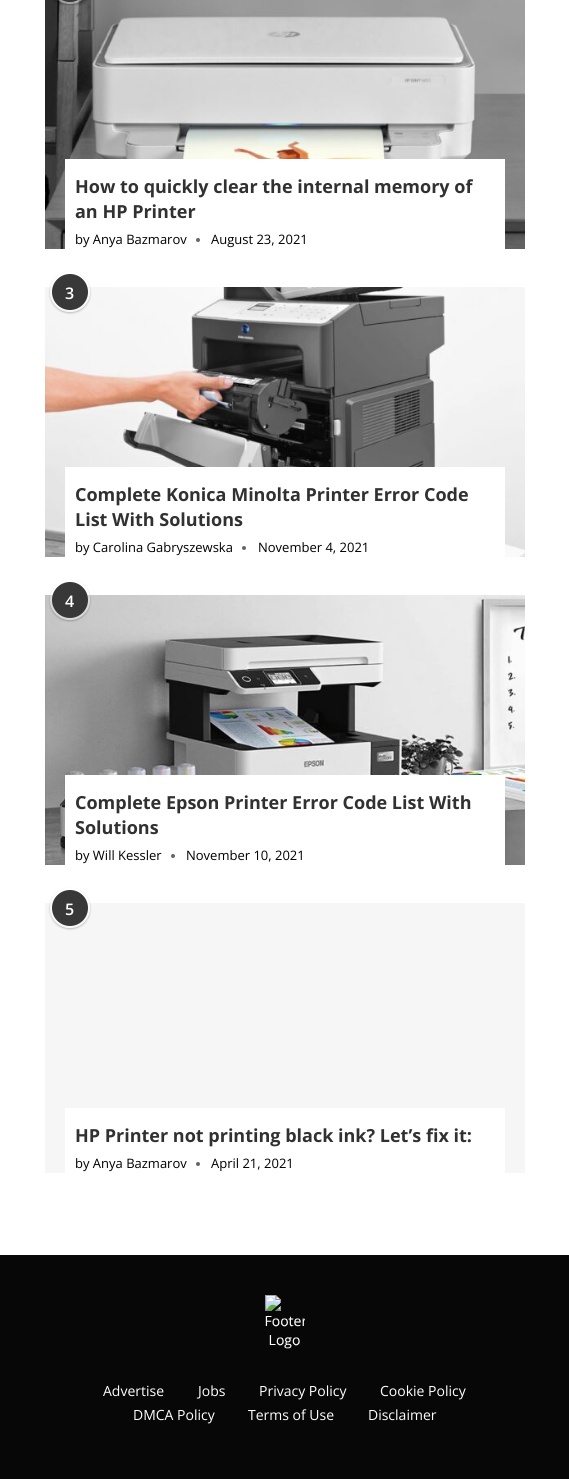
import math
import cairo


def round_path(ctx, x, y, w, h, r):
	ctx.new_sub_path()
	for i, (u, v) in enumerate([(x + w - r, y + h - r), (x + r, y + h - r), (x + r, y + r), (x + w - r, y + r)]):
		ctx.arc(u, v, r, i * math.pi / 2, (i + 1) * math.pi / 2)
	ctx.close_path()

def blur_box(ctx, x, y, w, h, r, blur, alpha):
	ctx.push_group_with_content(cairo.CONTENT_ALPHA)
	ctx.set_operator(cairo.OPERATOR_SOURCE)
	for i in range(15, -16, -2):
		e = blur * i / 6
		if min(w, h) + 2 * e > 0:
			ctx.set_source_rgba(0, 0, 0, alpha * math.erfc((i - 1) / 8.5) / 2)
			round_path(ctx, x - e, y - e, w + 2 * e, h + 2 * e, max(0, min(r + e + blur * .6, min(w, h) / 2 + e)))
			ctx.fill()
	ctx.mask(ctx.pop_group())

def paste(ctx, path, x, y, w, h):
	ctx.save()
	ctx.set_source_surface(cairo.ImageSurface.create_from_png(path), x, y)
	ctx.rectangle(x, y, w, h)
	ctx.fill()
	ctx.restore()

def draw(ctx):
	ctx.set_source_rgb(1, 1, 1)
	ctx.paint()
	paste(ctx, 'media/1.png', 45, 0, 480, 249)
	ctx.save()
	ctx.set_fill_rule(cairo.FILL_RULE_EVEN_ODD)
	ctx.new_path()
	ctx.move_to(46, 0)
	ctx.line_to(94, 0)
	ctx.line_to(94, 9)
	ctx.line_to(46, 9)
	ctx.close_path()
	ctx.move_to(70, -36)
	ctx.curve_to(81, -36, 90, -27, 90, -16)
	ctx.curve_to(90, -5, 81, 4, 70, 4)
	ctx.curve_to(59, 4, 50, -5, 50, -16)
	ctx.curve_to(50, -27, 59, -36, 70, -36)
	ctx.close_path()
	ctx.clip()
	ctx.set_source_rgb(0, 0, 0)
	blur_box(ctx, 50, -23, 40, 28, 20, 1, 0.25)
	ctx.restore()
	ctx.set_source_rgba(1, 1, 1, 0.3)
	round_path(ctx, 50, -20, 40, 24, 20)
	ctx.fill()
	ctx.set_source_rgb(0.22, 0.22, 0.22)
	round_path(ctx, 52, -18, 36, 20, 18)
	ctx.fill()
	ctx.set_source_rgb(1, 1, 1)
	ctx.rectangle(65, 159, 440, 90)
	ctx.fill()
	ctx.select_font_face('Open Sans', cairo.FONT_SLANT_NORMAL, cairo.FONT_WEIGHT_BOLD)
	ctx.set_font_size(18)
	ctx.set_source_rgb(0.192, 0.192, 0.192)
	ctx.move_to(75, 193)
	ctx.show_text('How to quickly clear the internal memory of')
	ctx.move_to(75, 218)
	ctx.show_text('an HP Printer')
	ctx.select_font_face('Open Sans')
	ctx.set_font_size(13)
	ctx.set_source_rgb(0, 0, 0)
	ctx.move_to(75, 244)
	ctx.show_text('by Anya Bazmarov')
	ctx.set_source_rgb(0.4, 0.4, 0.4)
	ctx.new_path()
	ctx.arc(198, 240, 2, 0, 2 * math.pi)
	ctx.fill()
	ctx.set_source_rgb(0, 0, 0)
	ctx.move_to(211, 244)
	ctx.show_text('August 23, 2021')
	paste(ctx, 'media/2.png', 45, 287, 480, 270)
	ctx.save()
	ctx.set_fill_rule(cairo.FILL_RULE_EVEN_ODD)
	ctx.new_path()
	ctx.move_to(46, 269)
	ctx.line_to(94, 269)
	ctx.line_to(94, 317)
	ctx.line_to(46, 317)
	ctx.close_path()
	ctx.move_to(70, 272)
	ctx.curve_to(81, 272, 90, 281, 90, 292)
	ctx.curve_to(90, 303, 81, 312, 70, 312)
	ctx.curve_to(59, 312, 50, 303, 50, 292)
	ctx.curve_to(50, 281, 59, 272, 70, 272)
	ctx.close_path()
	ctx.clip()
	ctx.set_source_rgb(0, 0, 0)
	blur_box(ctx, 50, 273, 40, 40, 20, 1, 0.25)
	ctx.restore()
	ctx.set_source_rgba(1, 1, 1, 0.3)
	ctx.arc(70, 292, 20, 0, 2 * math.pi)
	ctx.fill()
	ctx.set_source_rgb(0.22, 0.22, 0.22)
	ctx.arc(70, 292, 18, 0, 2 * math.pi)
	ctx.fill()
	ctx.select_font_face('Open Sans SemiBold')
	ctx.set_font_size(16)
	ctx.set_source_rgb(1, 1, 1)
	ctx.move_to(65, 299)
	ctx.show_text('3')
	ctx.rectangle(65, 467, 440, 90)
	ctx.fill()
	ctx.select_font_face('Open Sans', cairo.FONT_SLANT_NORMAL, cairo.FONT_WEIGHT_BOLD)
	ctx.set_font_size(18)
	ctx.set_source_rgb(0.192, 0.192, 0.192)
	ctx.move_to(75, 501)
	ctx.show_text('Complete Konica Minolta Printer Error Code')
	ctx.move_to(75, 526)
	ctx.show_text('List With Solutions')
	ctx.select_font_face('Open Sans')
	ctx.set_font_size(13)
	ctx.set_source_rgb(0, 0, 0)
	ctx.move_to(75, 552)
	ctx.show_text('by Carolina Gabryszewska')
	ctx.set_source_rgb(0.4, 0.4, 0.4)
	ctx.new_path()
	ctx.arc(244, 548, 2, 0, 2 * math.pi)
	ctx.fill()
	ctx.set_source_rgb(0, 0, 0)
	ctx.move_to(258, 552)
	ctx.show_text('November 4, 2021')
	paste(ctx, 'media/3.png', 45, 595, 480, 270)
	ctx.save()
	ctx.set_fill_rule(cairo.FILL_RULE_EVEN_ODD)
	ctx.new_path()
	ctx.move_to(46, 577)
	ctx.line_to(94, 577)
	ctx.line_to(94, 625)
	ctx.line_to(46, 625)
	ctx.close_path()
	ctx.move_to(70, 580)
	ctx.curve_to(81, 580, 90, 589, 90, 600)
	ctx.curve_to(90, 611, 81, 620, 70, 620)
	ctx.curve_to(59, 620, 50, 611, 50, 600)
	ctx.curve_to(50, 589, 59, 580, 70, 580)
	ctx.close_path()
	ctx.clip()
	ctx.set_source_rgb(0, 0, 0)
	blur_box(ctx, 50, 581, 40, 40, 20, 1, 0.25)
	ctx.restore()
	ctx.set_source_rgba(1, 1, 1, 0.3)
	ctx.arc(70, 600, 20, 0, 2 * math.pi)
	ctx.fill()
	ctx.set_source_rgb(0.22, 0.22, 0.22)
	ctx.arc(70, 600, 18, 0, 2 * math.pi)
	ctx.fill()
	ctx.select_font_face('Open Sans SemiBold')
	ctx.set_font_size(16)
	ctx.set_source_rgb(1, 1, 1)
	ctx.move_to(65, 607)
	ctx.show_text('4')
	ctx.rectangle(65, 775, 440, 90)
	ctx.fill()
	ctx.select_font_face('Open Sans', cairo.FONT_SLANT_NORMAL, cairo.FONT_WEIGHT_BOLD)
	ctx.set_font_size(18)
	ctx.set_source_rgb(0.192, 0.192, 0.192)
	ctx.move_to(75, 809)
	ctx.show_text('Complete Epson Printer Error Code List With')
	ctx.move_to(75, 834)
	ctx.show_text('Solutions')
	ctx.select_font_face('Open Sans')
	ctx.set_font_size(13)
	ctx.set_source_rgb(0, 0, 0)
	ctx.move_to(75, 860)
	ctx.show_text('by Will Kessler')
	ctx.set_source_rgb(0.4, 0.4, 0.4)
	ctx.new_path()
	ctx.arc(173, 856, 2, 0, 2 * math.pi)
	ctx.fill()
	ctx.set_source_rgb(0, 0, 0)
	ctx.move_to(186, 860)
	ctx.show_text('November 10, 2021')
	ctx.set_source_rgb(0.961, 0.961, 0.961)
	ctx.rectangle(45, 903, 480, 270)
	ctx.fill()
	ctx.save()
	ctx.set_fill_rule(cairo.FILL_RULE_EVEN_ODD)
	ctx.new_path()
	ctx.move_to(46, 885)
	ctx.line_to(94, 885)
	ctx.line_to(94, 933)
	ctx.line_to(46, 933)
	ctx.close_path()
	ctx.move_to(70, 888)
	ctx.curve_to(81, 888, 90, 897, 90, 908)
	ctx.curve_to(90, 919, 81, 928, 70, 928)
	ctx.curve_to(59, 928, 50, 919, 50, 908)
	ctx.curve_to(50, 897, 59, 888, 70, 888)
	ctx.close_path()
	ctx.clip()
	ctx.set_source_rgb(0, 0, 0)
	blur_box(ctx, 50, 889, 40, 40, 20, 1, 0.25)
	ctx.restore()
	ctx.set_source_rgba(1, 1, 1, 0.3)
	ctx.arc(70, 908, 20, 0, 2 * math.pi)
	ctx.fill()
	ctx.set_source_rgb(0.22, 0.22, 0.22)
	ctx.arc(70, 908, 18, 0, 2 * math.pi)
	ctx.fill()
	ctx.select_font_face('Open Sans SemiBold')
	ctx.set_font_size(16)
	ctx.set_source_rgb(1, 1, 1)
	ctx.move_to(65, 915)
	ctx.show_text('5')
	ctx.rectangle(65, 1108, 440, 65)
	ctx.fill()
	ctx.select_font_face('Open Sans', cairo.FONT_SLANT_NORMAL, cairo.FONT_WEIGHT_BOLD)
	ctx.set_font_size(18)
	ctx.set_source_rgb(0.192, 0.192, 0.192)
	ctx.move_to(75, 1142)
	ctx.show_text('HP Printer not printing black ink? Let’s fix it:')
	ctx.select_font_face('Open Sans')
	ctx.set_font_size(13)
	ctx.set_source_rgb(0, 0, 0)
	ctx.move_to(75, 1168)
	ctx.show_text('by Anya Bazmarov')
	ctx.set_source_rgb(0.4, 0.4, 0.4)
	ctx.new_path()
	ctx.arc(198, 1164, 2, 0, 2 * math.pi)
	ctx.fill()
	ctx.set_source_rgb(0, 0, 0)
	ctx.move_to(211, 1168)
	ctx.show_text('April 21, 2021')
	ctx.set_source_rgb(0.031, 0.031, 0.031)
	ctx.rectangle(0, 1255, 569, 224)
	ctx.fill()
	paste(ctx, 'media/4.png', 265, 1295, 40, 54)
	ctx.set_font_size(14)
	ctx.set_source_rgb(1, 1, 1)
	for x, y, s in [
		(103, 1396, 'Advertise'),
		(198, 1396, 'Jobs'),
		(259, 1396, 'Privacy Policy'),
		(380, 1396, 'Cookie Policy'),
		(133, 1420, 'DMCA Policy'),
		(248, 1420, 'Terms of Use'),
		(368, 1420, 'Disclaimer'),
	]:
		ctx.move_to(x, y)
		ctx.show_text(s)


surface = cairo.ImageSurface(cairo.FORMAT_RGB24, 569, 1479)
ctx = cairo.Context(surface)
options = cairo.FontOptions()
options.set_hint_metrics(cairo.HINT_METRICS_OFF)
options.set_hint_style(cairo.HINT_STYLE_NONE)
ctx.set_font_options(options)
ctx.set_miter_limit(4)
draw(ctx)
surface.write_to_png('image.png')
